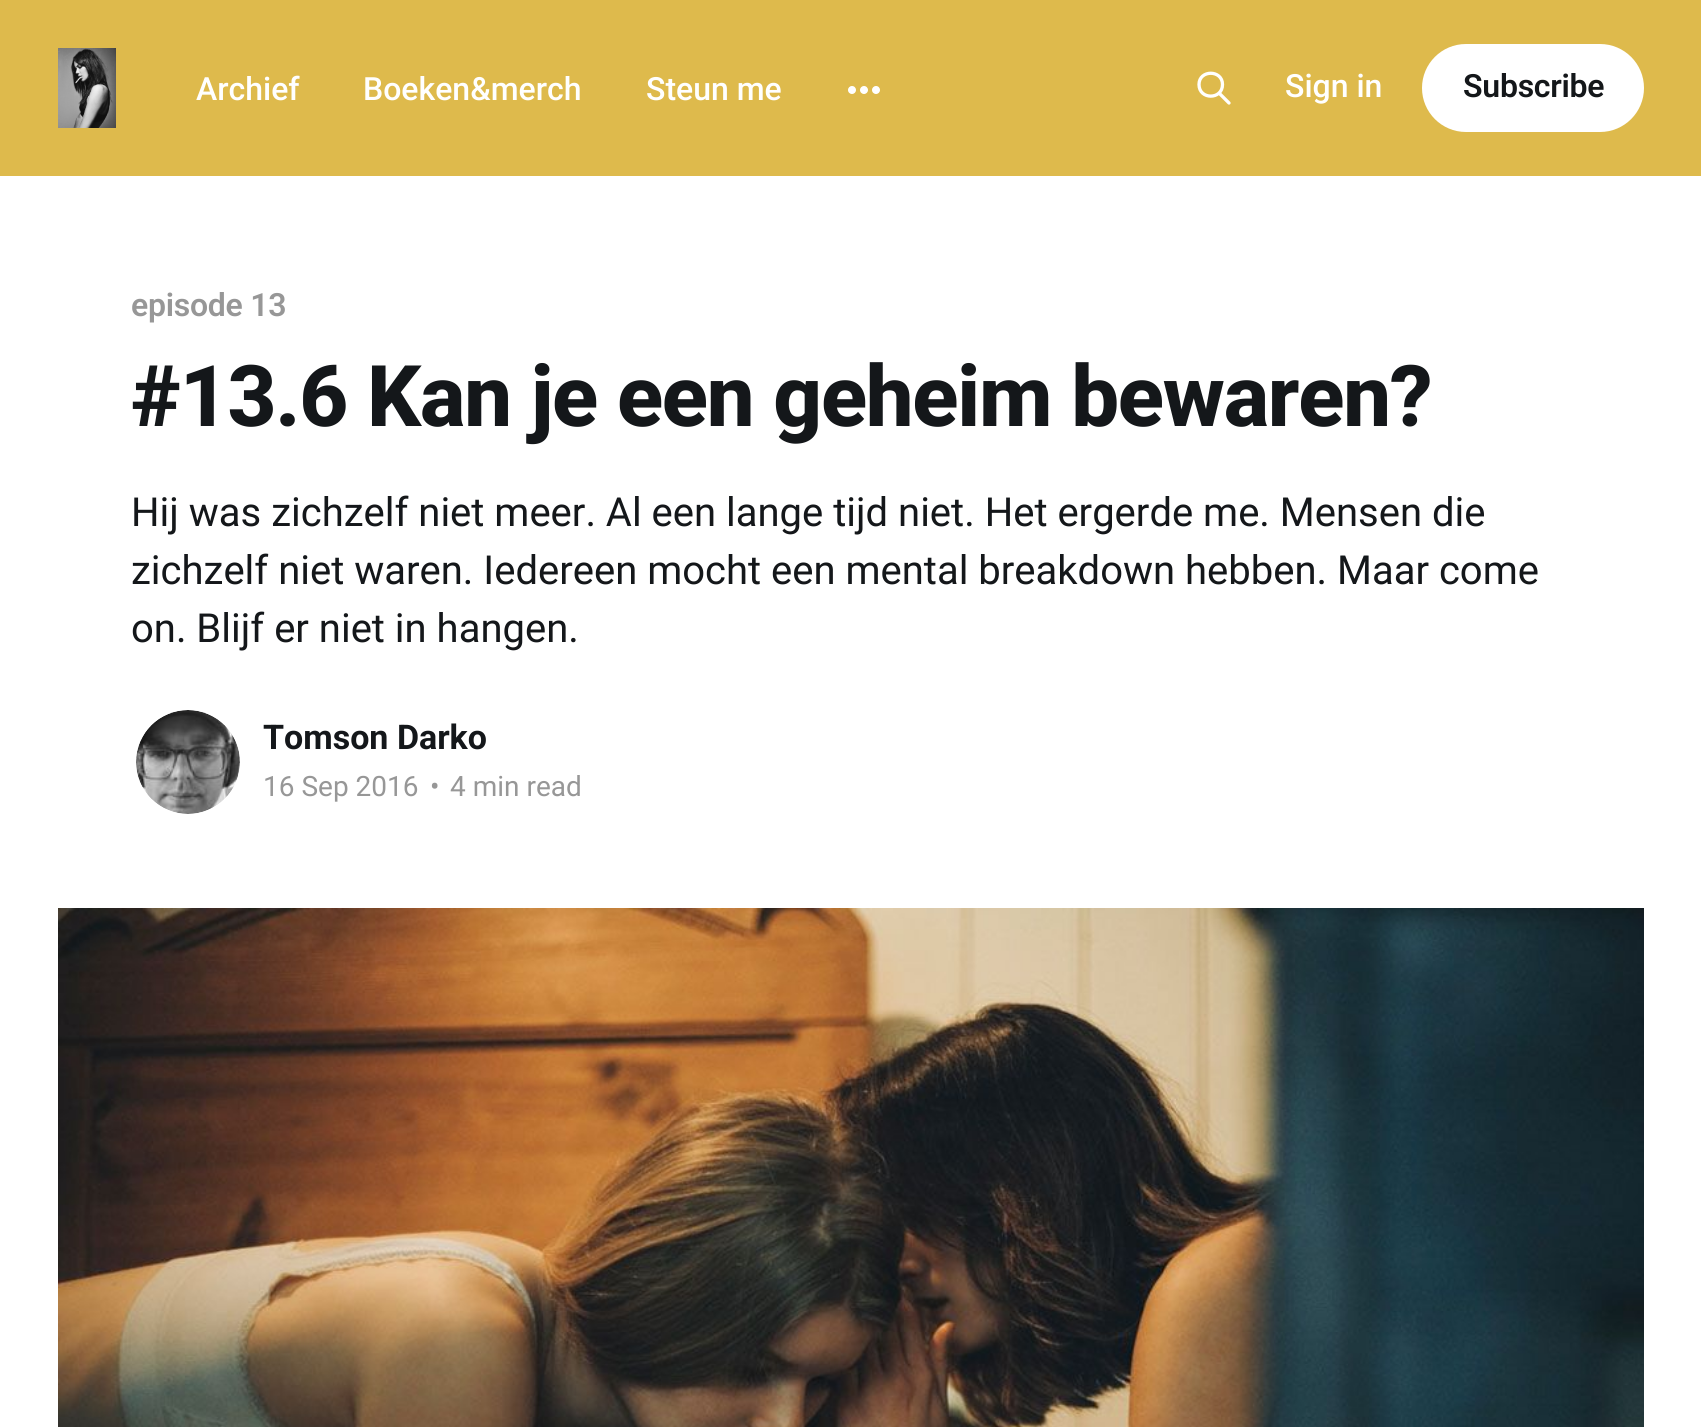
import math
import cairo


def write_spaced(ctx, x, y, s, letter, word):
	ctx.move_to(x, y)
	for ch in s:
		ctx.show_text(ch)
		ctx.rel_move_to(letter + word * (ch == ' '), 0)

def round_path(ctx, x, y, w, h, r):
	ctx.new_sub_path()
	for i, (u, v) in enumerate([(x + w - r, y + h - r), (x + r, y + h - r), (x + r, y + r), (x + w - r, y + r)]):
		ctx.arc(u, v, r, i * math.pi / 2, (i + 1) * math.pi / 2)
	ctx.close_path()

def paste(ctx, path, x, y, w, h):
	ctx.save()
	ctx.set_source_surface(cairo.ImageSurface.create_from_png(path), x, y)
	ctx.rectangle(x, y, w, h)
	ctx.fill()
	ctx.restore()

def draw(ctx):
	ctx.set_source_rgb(1, 1, 1)
	ctx.paint()
	ctx.set_source_rgb(0.871, 0.729, 0.298)
	ctx.rectangle(0, 0, 1701, 176)
	ctx.fill()
	paste(ctx, 'media/1.png', 58, 48, 58, 80)
	ctx.select_font_face('Roboto Medium')
	ctx.set_font_size(32)
	ctx.set_source_rgb(1, 1, 1)
	for x, y, s in [
		(196, 100, 'Archief'),
		(363, 100, 'Boeken&merch'),
		(646, 100, 'Steun me'),
	]:
		ctx.move_to(x, y)
		ctx.show_text(s)
	paste(ctx, 'media/2.png', 848, 86, 32, 8)
	ctx.new_path()
	ctx.move_to(1229, 103)
	ctx.line_to(1219, 93)
	ctx.move_to(1222.5, 84.5)
	ctx.curve_to(1222.5, 100, 1199, 100, 1199, 84.5)
	ctx.curve_to(1199, 69.5, 1222.5, 69.5, 1222.5, 84.5)
	ctx.close_path()
	ctx.set_line_width(3.3)
	ctx.set_line_cap(cairo.LINE_CAP_ROUND)
	ctx.set_line_join(cairo.LINE_JOIN_ROUND)
	ctx.stroke()
	ctx.move_to(1285, 97)
	ctx.show_text('Sign in')
	round_path(ctx, 1422, 44, 222, 88, 44)
	ctx.fill()
	ctx.select_font_face('Roboto SemiBold')
	ctx.set_source_rgb(0.082, 0.09, 0.102)
	write_spaced(ctx, 1463, 97, 'Subscribe', -0.25, 0)
	ctx.set_source_rgb(0.592, 0.592, 0.592)
	write_spaced(ctx, 131, 316, 'episode 13', -0.25, 0)
	ctx.select_font_face('Roboto ExtraBold')
	ctx.set_font_size(85.1)
	ctx.set_source_rgb(0.082, 0.09, 0.102)
	write_spaced(ctx, 131, 426, '#13.6 Kan je een geheim bewaren?', -1.25, 0)
	ctx.select_font_face('Roboto')
	ctx.set_font_size(40)
	for x, y, s in [
		(131, 526, 'Hij was zichzelf niet meer. Al een lange tijd niet. Het ergerde me. Mensen die'),
		(131, 584, 'zichzelf niet waren. Iedereen mocht een mental breakdown hebben. Maar come'),
		(131, 642, 'on. Blijf er niet in hangen.'),
	]:
		ctx.move_to(x, y)
		ctx.show_text(s)
	paste(ctx, 'media/3.png', 136, 710, 104, 104)
	ctx.select_font_face('Roboto', cairo.FONT_SLANT_NORMAL, cairo.FONT_WEIGHT_BOLD)
	ctx.set_font_size(34)
	ctx.move_to(263, 749)
	ctx.show_text('Tomson Darko')
	ctx.select_font_face('Roboto')
	ctx.set_font_size(28)
	ctx.set_source_rgb(0.592, 0.592, 0.592)
	for x, y, s in [
		(263, 796, '16 Sep 2016'),
		(430, 796, '•'),
		(450, 796, '4 min read'),
	]:
		ctx.move_to(x, y)
		ctx.show_text(s)
	paste(ctx, 'media/4.png', 58, 908, 1586, 519)


surface = cairo.ImageSurface(cairo.FORMAT_RGB24, 1701, 1427)
ctx = cairo.Context(surface)
options = cairo.FontOptions()
options.set_hint_metrics(cairo.HINT_METRICS_OFF)
options.set_hint_style(cairo.HINT_STYLE_NONE)
ctx.set_font_options(options)
ctx.set_miter_limit(4)
draw(ctx)
surface.write_to_png('image.png')
